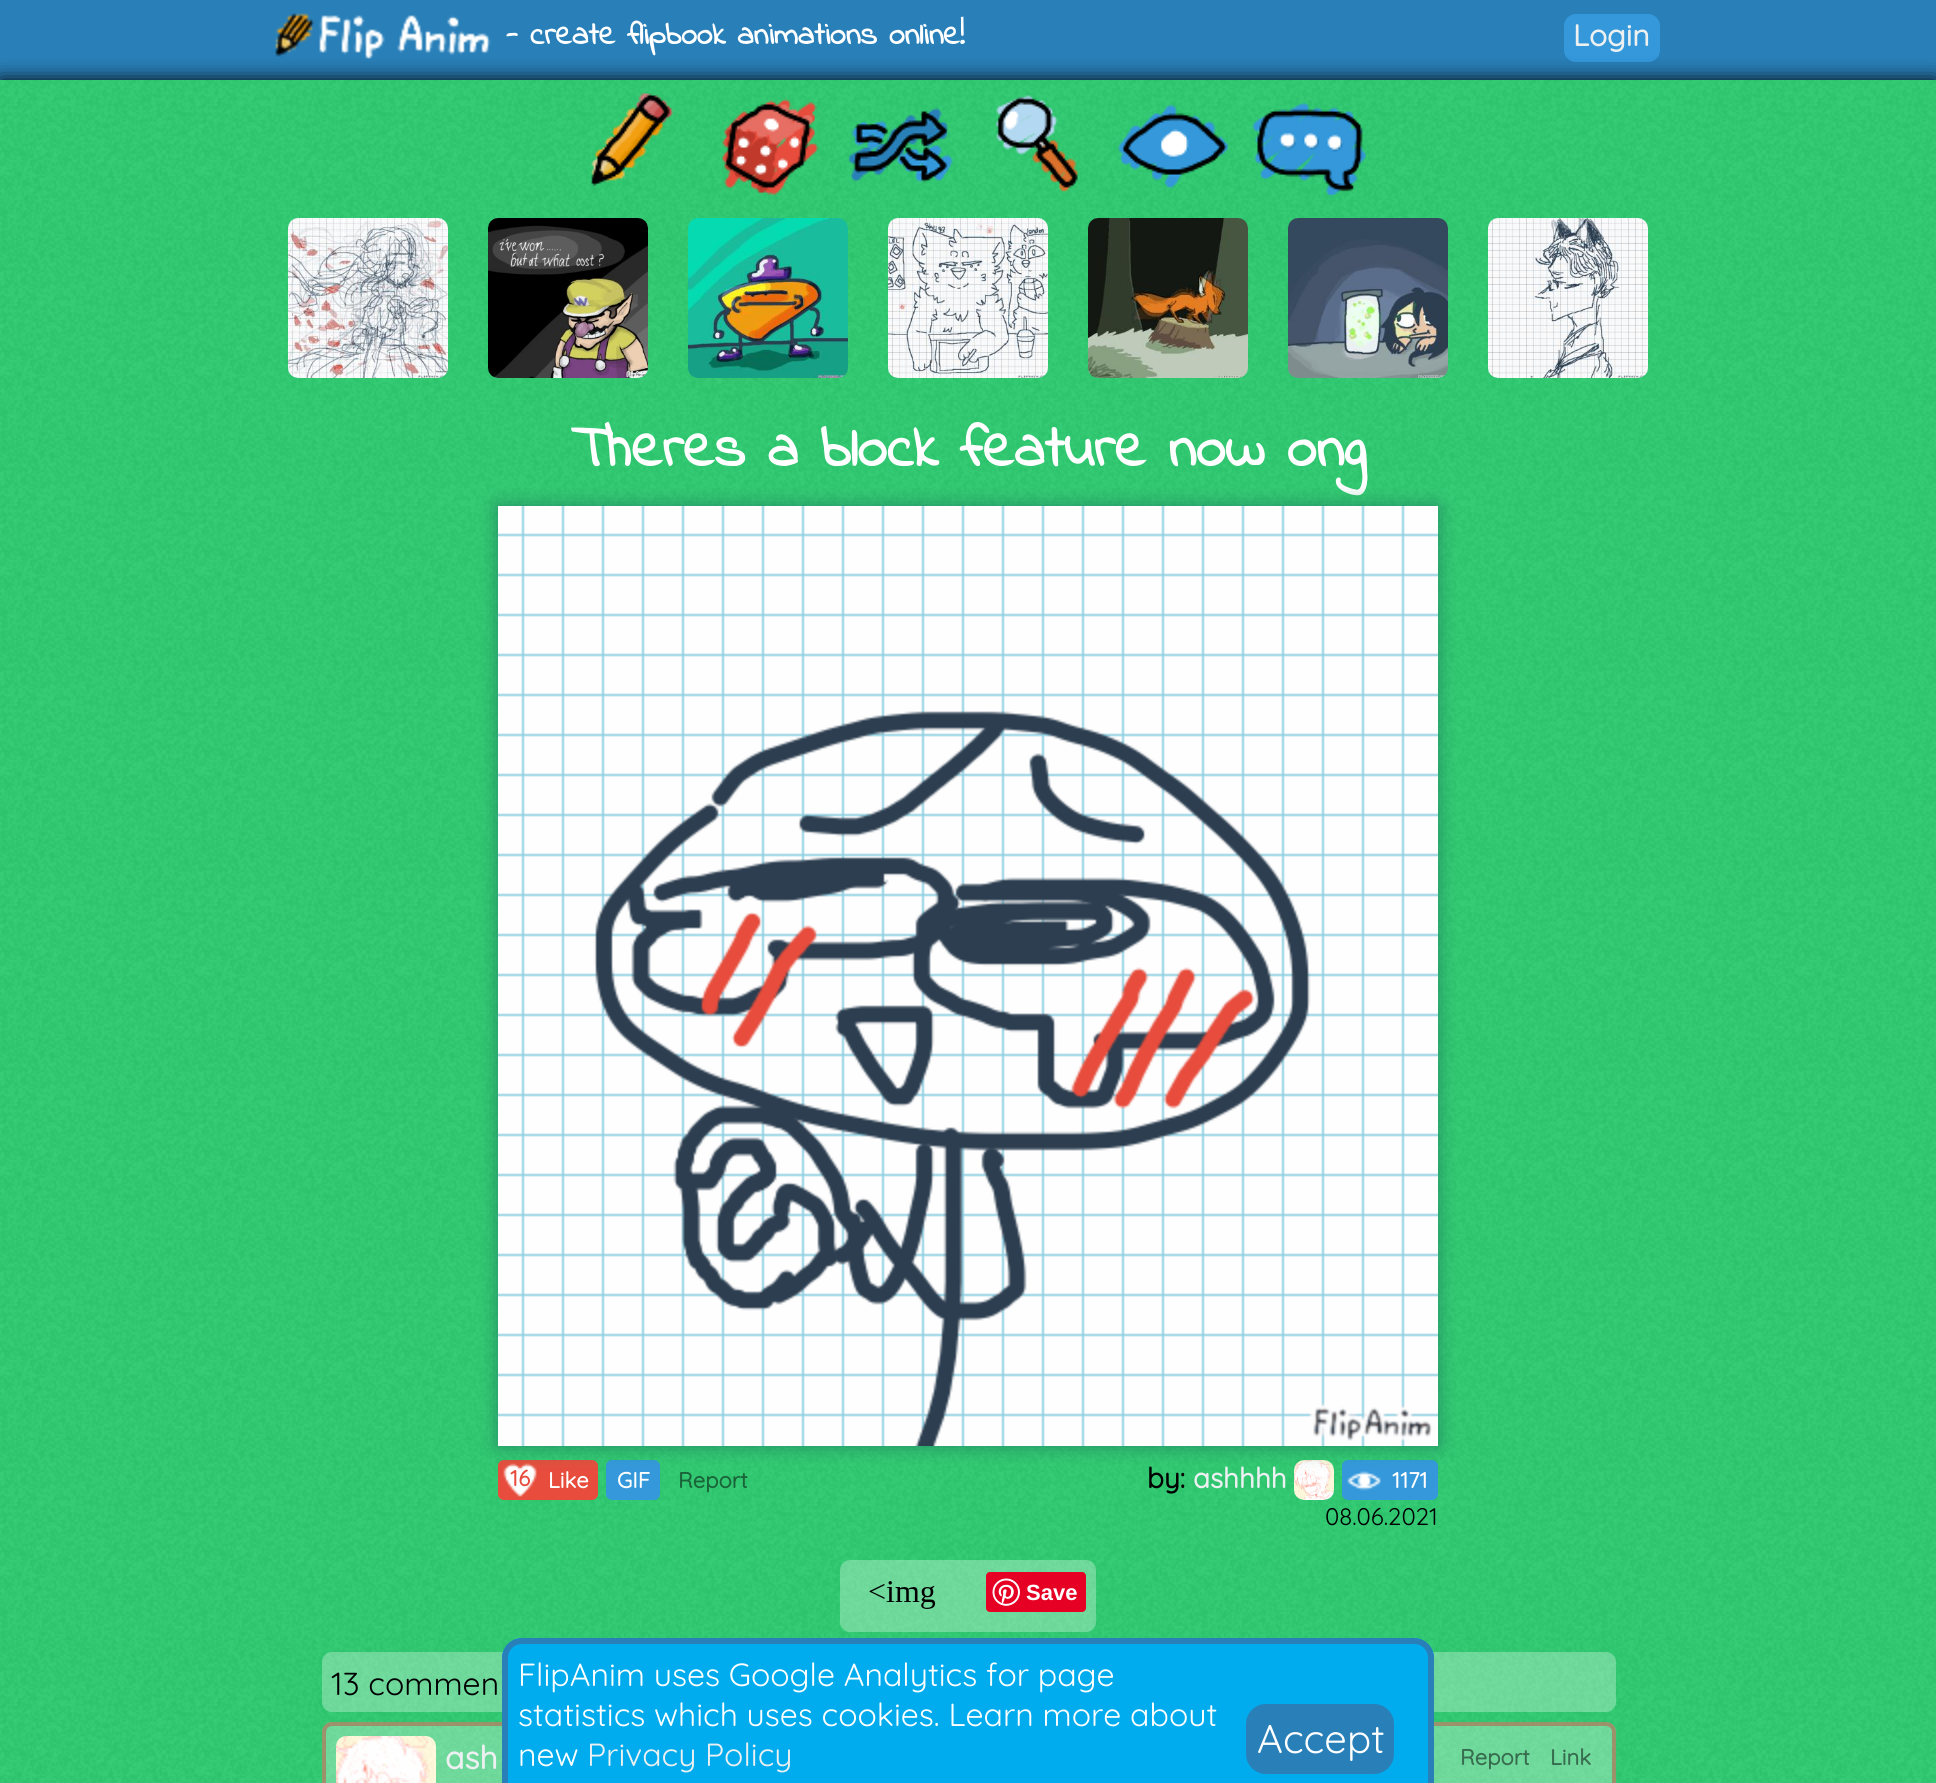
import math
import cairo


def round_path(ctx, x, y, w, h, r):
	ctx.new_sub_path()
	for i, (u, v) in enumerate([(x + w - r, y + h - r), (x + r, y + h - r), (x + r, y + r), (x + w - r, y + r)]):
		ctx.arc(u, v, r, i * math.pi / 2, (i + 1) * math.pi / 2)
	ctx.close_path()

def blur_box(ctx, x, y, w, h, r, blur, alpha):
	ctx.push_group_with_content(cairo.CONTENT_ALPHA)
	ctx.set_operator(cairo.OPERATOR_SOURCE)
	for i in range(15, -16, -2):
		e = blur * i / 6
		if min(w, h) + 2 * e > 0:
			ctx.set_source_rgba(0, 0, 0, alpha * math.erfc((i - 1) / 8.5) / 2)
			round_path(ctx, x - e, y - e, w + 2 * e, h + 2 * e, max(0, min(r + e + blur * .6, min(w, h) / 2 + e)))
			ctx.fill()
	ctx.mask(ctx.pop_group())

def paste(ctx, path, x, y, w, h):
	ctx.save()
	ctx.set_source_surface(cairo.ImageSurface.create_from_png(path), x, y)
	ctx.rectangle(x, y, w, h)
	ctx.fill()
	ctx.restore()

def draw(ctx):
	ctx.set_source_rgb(0.161, 0.502, 0.725)
	ctx.paint()
	paste(ctx, 'media/1.png', 275, 13, 216, 46)
	ctx.select_font_face('Indie Flower', cairo.FONT_SLANT_NORMAL, cairo.FONT_WEIGHT_BOLD)
	ctx.set_font_size(32)
	ctx.set_source_rgb(1, 1, 1)
	ctx.move_to(506, 44)
	ctx.show_text('- create flipbook animations online!')
	ctx.set_source_rgb(0.204, 0.596, 0.859)
	round_path(ctx, 1562, 12, 100, 52, 14)
	ctx.fill_preserve()
	ctx.set_source_rgb(0.161, 0.502, 0.725)
	ctx.set_line_width(4)
	ctx.stroke()
	ctx.select_font_face('Quicksand', cairo.FONT_SLANT_NORMAL, cairo.FONT_WEIGHT_BOLD)
	ctx.set_font_size(30)
	ctx.set_source_rgb(0.925, 0.941, 0.945)
	ctx.move_to(1573, 46)
	ctx.show_text('Login')
	ctx.set_source_rgb(0, 0, 0)
	blur_box(ctx, 0, 80, 1936, 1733, 0, 10, 1)
	ctx.set_source_rgb(0.18, 0.8, 0.443)
	ctx.rectangle(0, 80, 1936, 1703)
	ctx.fill()
	paste(ctx, 'media/2.png', 0, 80, 1936, 1703)
	paste(ctx, 'media/3.png', 590, 93, 84, 93)
	paste(ctx, 'media/4.png', 722, 98, 97, 97)
	paste(ctx, 'media/5.png', 847, 107, 106, 76)
	paste(ctx, 'media/6.png', 996, 95, 82, 97)
	paste(ctx, 'media/7.png', 1117, 104, 112, 84)
	paste(ctx, 'media/8.png', 1252, 102, 114, 95)
	paste(ctx, 'media/9.png', 288, 218, 160, 160)
	paste(ctx, 'media/10.png', 488, 218, 160, 160)
	paste(ctx, 'media/11.png', 688, 218, 160, 160)
	paste(ctx, 'media/12.png', 888, 218, 160, 160)
	paste(ctx, 'media/13.png', 1088, 218, 160, 160)
	paste(ctx, 'media/14.png', 1288, 218, 160, 160)
	paste(ctx, 'media/15.png', 1488, 218, 160, 160)
	ctx.select_font_face('Indie Flower', cairo.FONT_SLANT_NORMAL, cairo.FONT_WEIGHT_BOLD)
	ctx.set_font_size(60)
	ctx.set_source_rgb(1, 1, 1)
	ctx.move_to(571, 466)
	ctx.show_text('Theres a block feature now ong')
	ctx.set_source_rgb(0.906, 0.298, 0.235)
	round_path(ctx, 498, 1460, 100, 40, 6)
	ctx.fill()
	ctx.set_source_rgb(0.204, 0.596, 0.859)
	round_path(ctx, 606, 1460, 54, 40, 6)
	ctx.fill()
	paste(ctx, 'media/18.png', 1294, 1460, 40, 40)
	round_path(ctx, 1342, 1460, 96, 40, 6)
	ctx.fill()
	ctx.set_source_rgb(0.141, 0.545, 0.404)
	blur_box(ctx, 498, 506, 940, 940, 0, 10, 1)
	paste(ctx, 'media/16.png', 498, 506, 940, 940)
	paste(ctx, 'media/17.png', 503, 1463, 34, 34)
	ctx.select_font_face('Quicksand', cairo.FONT_SLANT_NORMAL, cairo.FONT_WEIGHT_BOLD)
	ctx.set_font_size(22)
	ctx.set_source_rgb(0.906, 0.298, 0.235)
	ctx.move_to(510, 1486)
	ctx.show_text('16')
	ctx.set_source_rgb(1, 1, 1)
	ctx.move_to(548, 1488)
	ctx.show_text('Like')
	ctx.move_to(617, 1488)
	ctx.show_text('GIF')
	ctx.set_source_rgb(0.098, 0.392, 0.224)
	ctx.move_to(678, 1488)
	ctx.show_text('Report')
	ctx.set_font_size(28)
	ctx.set_source_rgb(0, 0, 0)
	ctx.move_to(1147, 1488)
	ctx.show_text('by:')
	ctx.set_source_rgb(0.925, 0.941, 0.945)
	ctx.move_to(1193, 1488)
	ctx.show_text('ashhhh')
	paste(ctx, 'media/19.png', 1347, 1471, 34, 20)
	ctx.set_font_size(22)
	ctx.set_source_rgb(1, 1, 1)
	ctx.move_to(1392, 1488)
	ctx.show_text('1171')
	ctx.select_font_face('Quicksand Light')
	ctx.set_font_size(24)
	ctx.set_source_rgb(0, 0, 0)
	ctx.move_to(1325, 1525)
	ctx.show_text('08.06.2021')
	ctx.set_source_rgba(1, 1, 1, 0.3)
	round_path(ctx, 840, 1560, 256, 72, 10)
	ctx.fill()
	paste(ctx, 'media/20.png', 869, 1581, 67, 28)
	ctx.set_source_rgb(0.902, 0, 0.137)
	round_path(ctx, 986, 1572, 100, 40, 4)
	ctx.fill()
	paste(ctx, 'media/21.png', 992, 1578, 28, 28)
	ctx.select_font_face('Liberation Sans', cairo.FONT_SLANT_NORMAL, cairo.FONT_WEIGHT_BOLD)
	ctx.set_font_size(22)
	ctx.set_source_rgb(1, 1, 1)
	ctx.move_to(1026, 1600)
	ctx.show_text('Save')
	ctx.set_source_rgba(1, 1, 1, 0.3)
	round_path(ctx, 322, 1652, 1294, 60, 10)
	ctx.fill()
	ctx.select_font_face('Quicksand Light')
	ctx.set_font_size(32)
	ctx.set_source_rgb(0, 0, 0)
	ctx.move_to(331, 1695)
	ctx.show_text('13 commen')
	ctx.set_source_rgba(1, 1, 1, 0.3)
	round_path(ctx, 322, 1722, 1294, 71, 10)
	ctx.fill()
	round_path(ctx, 324, 1724, 1290, 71, 8)
	ctx.set_source_rgba(0.784, 0.298, 0.235, 0.5)
	ctx.stroke()
	paste(ctx, 'media/22.png', 336, 1736, 100, 47)
	ctx.select_font_face('Quicksand', cairo.FONT_SLANT_NORMAL, cairo.FONT_WEIGHT_BOLD)
	ctx.set_source_rgb(0.925, 0.941, 0.945)
	ctx.move_to(445, 1769)
	ctx.show_text('ash')
	ctx.set_font_size(22)
	ctx.set_source_rgb(0.216, 0.424, 0.306)
	ctx.move_to(1460, 1765)
	ctx.show_text('Report')
	ctx.move_to(1550, 1765)
	ctx.show_text('Link')
	ctx.set_source_rgb(0, 0.675, 0.929)
	ctx.new_path()
	ctx.move_to(522, 1638)
	ctx.line_to(1414, 1638)
	ctx.curve_to(1425, 1638, 1434, 1647, 1434, 1658)
	ctx.line_to(1434, 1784)
	ctx.line_to(502, 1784)
	ctx.line_to(502, 1658)
	ctx.curve_to(502, 1647, 511, 1638, 522, 1638)
	ctx.close_path()
	ctx.fill()
	ctx.set_source_rgb(0.161, 0.502, 0.725)
	ctx.set_fill_rule(cairo.FILL_RULE_EVEN_ODD)
	ctx.new_path()
	ctx.move_to(522, 1638)
	ctx.line_to(1414, 1638)
	ctx.curve_to(1425, 1638, 1434, 1647, 1434, 1658)
	ctx.line_to(1434, 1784)
	ctx.line_to(502, 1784)
	ctx.line_to(502, 1658)
	ctx.curve_to(502, 1647, 511, 1638, 522, 1638)
	ctx.close_path()
	ctx.move_to(522, 1644)
	ctx.line_to(1414, 1644)
	ctx.curve_to(1422, 1644, 1428, 1650, 1428, 1658)
	ctx.line_to(1428, 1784)
	ctx.line_to(508, 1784)
	ctx.line_to(508, 1658)
	ctx.curve_to(508, 1650, 514, 1644, 522, 1644)
	ctx.close_path()
	ctx.fill()
	ctx.select_font_face('Quicksand Light')
	ctx.set_font_size(32)
	ctx.set_source_rgb(1, 1, 1)
	for x, y, s in [
		(518, 1686, 'FlipAnim uses Google Analytics for page'),
		(518, 1726, 'statistics which uses cookies. Learn more about'),
		(518, 1766, 'new'),
	]:
		ctx.move_to(x, y)
		ctx.show_text(s)
	ctx.set_source_rgb(0.925, 0.941, 0.945)
	ctx.move_to(587, 1766)
	ctx.show_text('Privacy Policy')
	ctx.set_source_rgb(0.161, 0.502, 0.725)
	round_path(ctx, 1246, 1704, 148, 70, 20)
	ctx.fill()
	ctx.set_font_size(40)
	ctx.set_source_rgb(1, 1, 1)
	ctx.move_to(1257, 1753)
	ctx.show_text('Accept')


surface = cairo.ImageSurface(cairo.FORMAT_RGB24, 1936, 1783)
ctx = cairo.Context(surface)
options = cairo.FontOptions()
options.set_hint_metrics(cairo.HINT_METRICS_OFF)
options.set_hint_style(cairo.HINT_STYLE_NONE)
ctx.set_font_options(options)
ctx.set_miter_limit(4)
draw(ctx)
surface.write_to_png('image.png')
